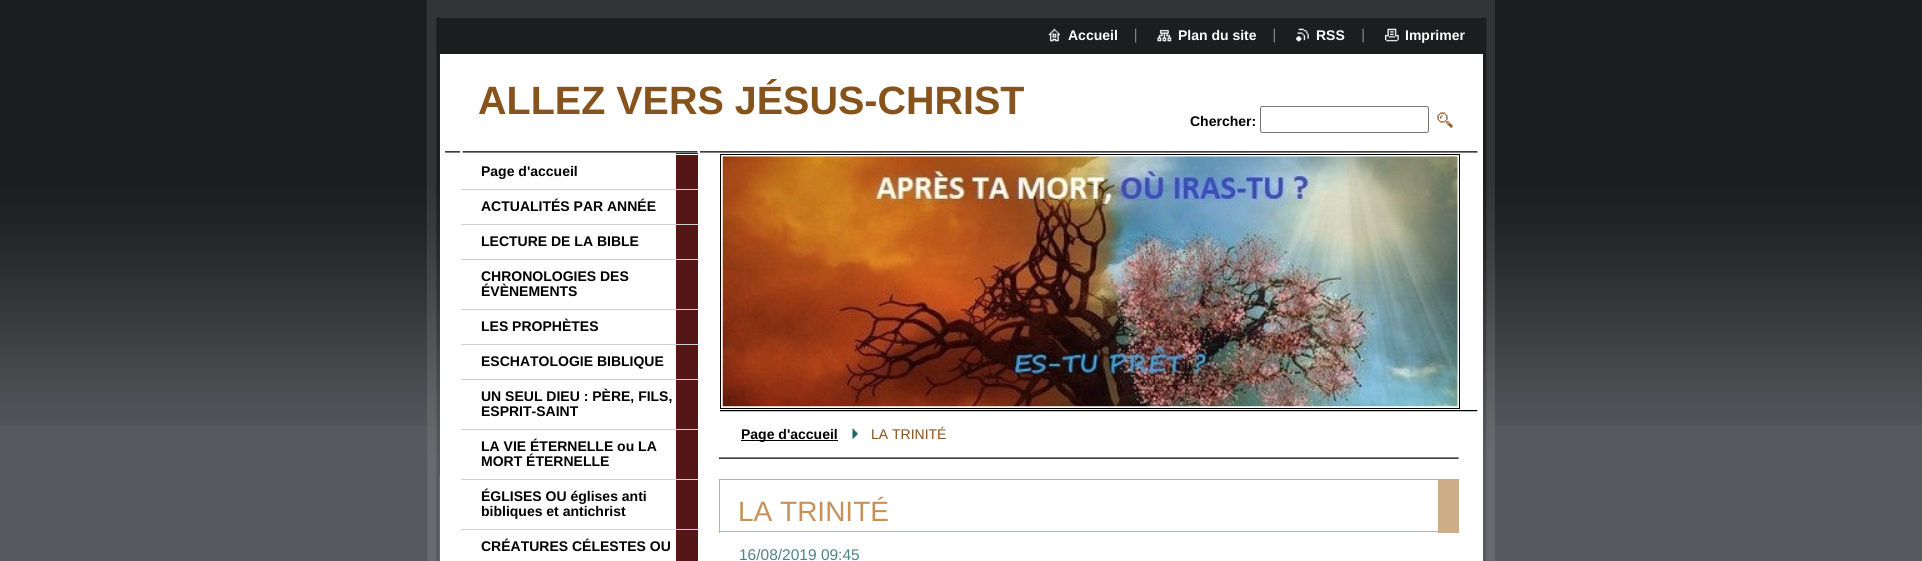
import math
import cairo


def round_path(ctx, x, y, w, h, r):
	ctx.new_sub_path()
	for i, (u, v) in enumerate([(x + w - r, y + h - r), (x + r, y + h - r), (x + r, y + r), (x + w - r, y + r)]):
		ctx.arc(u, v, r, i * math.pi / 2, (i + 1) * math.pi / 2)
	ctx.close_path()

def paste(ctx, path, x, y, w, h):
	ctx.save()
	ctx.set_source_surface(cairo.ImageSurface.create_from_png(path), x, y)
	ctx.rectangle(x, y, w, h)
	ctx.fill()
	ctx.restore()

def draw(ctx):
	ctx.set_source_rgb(0.337, 0.349, 0.365)
	ctx.paint()
	paste(ctx, 'media/1.png', 0, 0, 1922, 426)
	ctx.set_source_rgb(0.404, 0.416, 0.431)
	ctx.rectangle(1487, 475, 8, 86)
	ctx.fill()
	paste(ctx, 'media/2.png', 427, 0, 1060, 561)
	paste(ctx, 'media/3.png', 427, 0, 1068, 475)
	ctx.set_source_rgb(1, 1, 1)
	ctx.rectangle(440, 54, 1043, 507)
	ctx.fill()
	ctx.set_source_rgb(0.196, 0.204, 0.212)
	ctx.rectangle(440, 17, 1043, 1)
	ctx.fill()
	ctx.set_source_rgb(0.106, 0.114, 0.122)
	ctx.rectangle(440, 53, 1043, 1)
	ctx.fill()
	paste(ctx, 'media/4.png', 1048, 28, 12, 14)
	ctx.select_font_face('Liberation Sans', cairo.FONT_SLANT_NORMAL, cairo.FONT_WEIGHT_BOLD)
	ctx.set_font_size(14)
	ctx.set_source_rgb(1, 1, 1)
	ctx.move_to(1068, 40)
	ctx.show_text('Accueil')
	paste(ctx, 'media/5.png', 1135, 28, 2, 15)
	paste(ctx, 'media/6.png', 1157, 29, 15, 13)
	ctx.move_to(1178, 40)
	ctx.show_text('Plan du site')
	paste(ctx, 'media/7.png', 1273, 28, 2, 15)
	paste(ctx, 'media/8.png', 1296, 28, 13, 14)
	ctx.move_to(1316, 40)
	ctx.show_text('RSS')
	paste(ctx, 'media/9.png', 1362, 28, 2, 15)
	paste(ctx, 'media/10.png', 1385, 28, 14, 14)
	ctx.move_to(1405, 40)
	ctx.show_text('Imprimer')
	ctx.set_font_size(39.5)
	ctx.set_source_rgb(0.525, 0.325, 0.11)
	ctx.move_to(478, 114)
	ctx.show_text('ALLEZ VERS JÉSUS-CHRIST')
	ctx.set_font_size(14)
	ctx.set_source_rgb(0, 0, 0)
	ctx.move_to(1190, 126)
	ctx.show_text('Chercher:')
	round_path(ctx, 1260.5, 106.5, 168, 26, 2)
	ctx.set_source_rgb(0.463, 0.463, 0.463)
	ctx.set_line_width(1)
	ctx.stroke()
	paste(ctx, 'media/11.png', 1437, 112, 16, 16)
	paste(ctx, 'media/12.png', 445, 151, 253, 2)
	ctx.set_source_rgb(0.329, 0.086, 0.09)
	ctx.rectangle(676, 153, 22, 408)
	ctx.fill()
	ctx.set_source_rgb(1, 1, 1)
	ctx.rectangle(676, 154, 22, 1)
	ctx.fill()
	ctx.set_source_rgb(0.812, 0.812, 0.812)
	ctx.rectangle(461, 189, 237, 1)
	ctx.fill()
	ctx.set_source_rgb(0, 0, 0)
	ctx.move_to(481, 176)
	ctx.show_text('Page d\'accueil')
	ctx.set_source_rgb(0.812, 0.812, 0.812)
	ctx.rectangle(461, 224, 237, 1)
	ctx.fill()
	ctx.set_source_rgb(0, 0, 0)
	ctx.move_to(481, 211)
	ctx.show_text('ACTUALITÉS PAR ANNÉE')
	ctx.set_source_rgb(0.812, 0.812, 0.812)
	ctx.rectangle(461, 259, 237, 1)
	ctx.fill()
	ctx.set_source_rgb(0, 0, 0)
	ctx.move_to(481, 246)
	ctx.show_text('LECTURE DE LA BIBLE')
	ctx.set_source_rgb(0.812, 0.812, 0.812)
	ctx.rectangle(461, 309, 237, 1)
	ctx.fill()
	ctx.set_source_rgb(0, 0, 0)
	ctx.move_to(481, 281)
	ctx.show_text('CHRONOLOGIES DES')
	ctx.move_to(481, 296)
	ctx.show_text('ÉVÈNEMENTS')
	ctx.set_source_rgb(0.812, 0.812, 0.812)
	ctx.rectangle(461, 344, 237, 1)
	ctx.fill()
	ctx.set_source_rgb(0, 0, 0)
	ctx.move_to(481, 331)
	ctx.show_text('LES PROPHÈTES')
	ctx.set_source_rgb(0.812, 0.812, 0.812)
	ctx.rectangle(461, 379, 237, 1)
	ctx.fill()
	ctx.set_source_rgb(0, 0, 0)
	ctx.move_to(481, 366)
	ctx.show_text('ESCHATOLOGIE BIBLIQUE')
	ctx.set_source_rgb(0.812, 0.812, 0.812)
	ctx.rectangle(461, 429, 237, 1)
	ctx.fill()
	ctx.set_source_rgb(0, 0, 0)
	ctx.move_to(481, 401)
	ctx.show_text('UN SEUL DIEU : PÈRE, FILS,')
	ctx.move_to(481, 416)
	ctx.show_text('ESPRIT-SAINT')
	ctx.set_source_rgb(0.812, 0.812, 0.812)
	ctx.rectangle(461, 479, 237, 1)
	ctx.fill()
	ctx.set_source_rgb(0, 0, 0)
	ctx.move_to(481, 451)
	ctx.show_text('LA VIE ÉTERNELLE ou LA')
	ctx.move_to(481, 466)
	ctx.show_text('MORT ÉTERNELLE')
	ctx.set_source_rgb(0.812, 0.812, 0.812)
	ctx.rectangle(461, 529, 237, 1)
	ctx.fill()
	ctx.set_source_rgb(0, 0, 0)
	for x, y, s in [
		(481, 501, 'ÉGLISES OU églises anti'),
		(481, 516, 'bibliques et antichrist'),
		(481, 551, 'CRÉATURES CÉLESTES OU'),
	]:
		ctx.move_to(x, y)
		ctx.show_text(s)
	paste(ctx, 'media/13.png', 700, 151, 778, 2)
	paste(ctx, 'media/14.png', 720, 410, 758, 2)
	ctx.rectangle(720.5, 154.5, 739, 254)
	ctx.stroke()
	paste(ctx, 'media/15.png', 722, 156, 736, 251)
	paste(ctx, 'media/16.png', 718, 457, 741, 2)
	ctx.rectangle(741, 440, 97, 1)
	ctx.fill()
	ctx.move_to(741, 439)
	ctx.show_text('Page d\'accueil')
	paste(ctx, 'media/17.png', 852, 428, 6, 11)
	ctx.select_font_face('Liberation Sans')
	ctx.set_source_rgb(0.525, 0.325, 0.11)
	ctx.move_to(871, 439)
	ctx.show_text('LA TRINITÉ')
	ctx.set_source_rgb(0.808, 0.675, 0.533)
	ctx.rectangle(719, 479, 719, 1)
	ctx.rectangle(1438, 479, 21, 54)
	ctx.rectangle(719, 531, 719, 1)
	ctx.rectangle(719, 479, 1, 54)
	ctx.fill()
	ctx.set_font_size(28)
	ctx.set_source_rgb(0.776, 0.569, 0.349)
	ctx.move_to(738, 521)
	ctx.show_text('LA TRINITÉ')
	ctx.set_font_size(15.5)
	ctx.set_source_rgb(0.302, 0.514, 0.533)
	ctx.move_to(739, 560)
	ctx.show_text('16/08/2019 09:45')


surface = cairo.ImageSurface(cairo.FORMAT_RGB24, 1922, 561)
ctx = cairo.Context(surface)
options = cairo.FontOptions()
options.set_hint_metrics(cairo.HINT_METRICS_OFF)
options.set_hint_style(cairo.HINT_STYLE_NONE)
ctx.set_font_options(options)
ctx.set_miter_limit(4)
draw(ctx)
surface.write_to_png('image.png')
